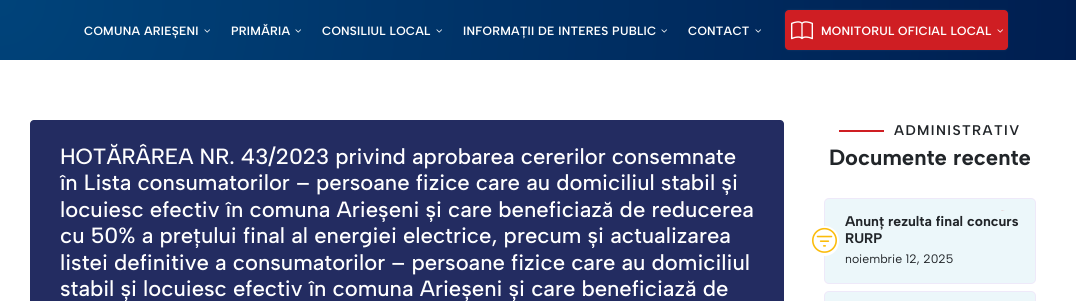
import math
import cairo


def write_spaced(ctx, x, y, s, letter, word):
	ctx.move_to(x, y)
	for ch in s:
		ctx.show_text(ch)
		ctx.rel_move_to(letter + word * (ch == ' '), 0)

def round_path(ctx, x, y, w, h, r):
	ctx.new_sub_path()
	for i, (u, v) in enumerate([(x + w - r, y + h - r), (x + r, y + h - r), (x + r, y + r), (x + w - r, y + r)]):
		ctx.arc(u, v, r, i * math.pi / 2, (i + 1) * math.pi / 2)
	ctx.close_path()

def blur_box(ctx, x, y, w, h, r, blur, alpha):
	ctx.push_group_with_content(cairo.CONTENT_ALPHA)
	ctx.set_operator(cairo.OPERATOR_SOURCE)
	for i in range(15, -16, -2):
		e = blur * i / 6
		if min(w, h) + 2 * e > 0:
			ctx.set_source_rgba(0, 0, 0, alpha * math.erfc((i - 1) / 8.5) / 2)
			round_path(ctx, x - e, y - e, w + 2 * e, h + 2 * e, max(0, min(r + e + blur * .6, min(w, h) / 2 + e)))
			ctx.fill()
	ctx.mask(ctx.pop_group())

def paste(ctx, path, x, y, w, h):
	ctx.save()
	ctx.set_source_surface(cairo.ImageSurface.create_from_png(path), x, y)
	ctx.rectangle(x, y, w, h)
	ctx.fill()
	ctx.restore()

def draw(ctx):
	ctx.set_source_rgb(1, 1, 1)
	ctx.paint()
	gradient = cairo.RadialGradient(0, 0, 0, 0, 0, 1078)
	gradient.add_color_stop_rgba(0, 0, 0.263, 0.478, 1)
	gradient.add_color_stop_rgba(1, 0, 0.118, 0.314, 1)
	ctx.set_source(gradient)
	ctx.rectangle(0, 0, 1076, 60)
	ctx.fill()
	ctx.select_font_face('Albert Sans SemiBold')
	ctx.set_font_size(12)
	ctx.set_source_rgb(1, 1, 1)
	write_spaced(ctx, 84, 35, 'COMUNA ARIEȘENI', 0.25, 0)
	paste(ctx, 'media/1.png', 204, 29, 6, 4)
	write_spaced(ctx, 231, 35, 'PRIMĂRIA', 0.25, 0)
	paste(ctx, 'media/2.png', 295, 29, 6, 4)
	write_spaced(ctx, 322, 35, 'CONSILIUL LOCAL', 0.25, 0)
	paste(ctx, 'media/3.png', 436, 29, 6, 4)
	write_spaced(ctx, 463, 35, 'INFORMAȚII DE INTERES PUBLIC', 0.25, 0)
	paste(ctx, 'media/4.png', 661, 29, 6, 4)
	write_spaced(ctx, 688, 35, 'CONTACT', 0.25, 0)
	paste(ctx, 'media/5.png', 755, 29, 6, 4)
	ctx.set_source_rgb(0.2, 0.302, 0.447)
	blur_box(ctx, 785, 10, 223, 40, 4, 1, 0.4)
	ctx.set_source_rgb(0.812, 0.118, 0.137)
	round_path(ctx, 785, 10, 223, 40, 4)
	ctx.fill()
	paste(ctx, 'media/6.png', 791, 21, 22, 19)
	ctx.set_source_rgb(1, 1, 1)
	write_spaced(ctx, 821, 35, 'MONITORUL OFICIAL LOCAL', 0.25, 0)
	paste(ctx, 'media/7.png', 997, 29, 6, 4)
	ctx.set_source_rgb(0.137, 0.173, 0.38)
	round_path(ctx, 30, 120, 754, 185, 4)
	ctx.fill()
	ctx.select_font_face('Albert Sans Medium')
	ctx.set_font_size(22)
	ctx.set_source_rgb(1, 1, 1)
	for x, y, s in [
		(60, 164, 'HOTĂRÂREA NR. 43/2023 privind aprobarea cererilor consemnate'),
		(60, 190, 'în Lista consumatorilor – persoane fizice care au domiciliul stabil și'),
		(60, 217, 'locuiesc efectiv în comuna Arieșeni și care beneficiază de reducerea'),
		(60, 243, 'cu 50% a prețului final al energiei electrice, precum și actualizarea'),
		(60, 270, 'listei definitive a consumatorilor – persoane fizice care au domiciliul'),
		(60, 296, 'stabil și locuiesc efectiv în comuna Arieșeni și care beneficiază de'),
	]:
		ctx.move_to(x, y)
		ctx.show_text(s)
	ctx.set_source_rgb(0.812, 0.118, 0.137)
	ctx.rectangle(839, 130, 45, 2)
	ctx.fill()
	ctx.select_font_face('Albert Sans SemiBold')
	ctx.set_font_size(14)
	ctx.set_source_rgb(0.129, 0.145, 0.161)
	write_spaced(ctx, 894, 135, 'ADMINISTRATIV', 1.4, 0)
	ctx.select_font_face('Albert Sans', cairo.FONT_SLANT_NORMAL, cairo.FONT_WEIGHT_BOLD)
	ctx.set_font_size(22)
	ctx.move_to(829, 165)
	ctx.show_text('Documente recente')
	ctx.set_source_rgb(0.925, 0.965, 0.98)
	round_path(ctx, 824.5, 198.5, 211, 85, 4.5)
	ctx.fill_preserve()
	ctx.set_source_rgb(0.933, 0.914, 0.976)
	ctx.set_line_width(1)
	ctx.stroke()
	ctx.set_source_rgb(1, 1, 1)
	round_path(ctx, 810, 226, 29, 30, 14.5)
	ctx.fill()
	paste(ctx, 'media/8.png', 812, 227, 25, 26)
	ctx.set_font_size(14)
	ctx.set_source_rgb(0.129, 0.145, 0.161)
	ctx.move_to(845, 226)
	ctx.show_text('Anunț rezulta final concurs')
	ctx.move_to(845, 243)
	ctx.show_text('RURP')
	ctx.select_font_face('Albert Sans')
	ctx.set_font_size(12.25)
	ctx.move_to(845, 263)
	ctx.show_text('noiembrie 12, 2025')
	ctx.set_source_rgb(0.925, 0.965, 0.98)
	round_path(ctx, 824.5, 291.5, 211, 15, 4.5)
	ctx.fill_preserve()
	ctx.set_source_rgb(0.933, 0.914, 0.976)
	ctx.stroke()
	ctx.new_path()
	ctx.move_to(1005, 211)
	ctx.curve_to(1005, 179.5, 1053, 179.5, 1053, 211)
	ctx.curve_to(1053, 242.5, 1005, 242.5, 1005, 211)
	ctx.set_source_rgb(0.824, 0.082, 0.098)
	ctx.set_line_width(7.2)
	ctx.set_dash([0, 150])
	ctx.stroke()


surface = cairo.ImageSurface(cairo.FORMAT_RGB24, 1076, 301)
ctx = cairo.Context(surface)
options = cairo.FontOptions()
options.set_hint_metrics(cairo.HINT_METRICS_OFF)
options.set_hint_style(cairo.HINT_STYLE_NONE)
ctx.set_font_options(options)
ctx.set_miter_limit(4)
draw(ctx)
surface.write_to_png('image.png')
